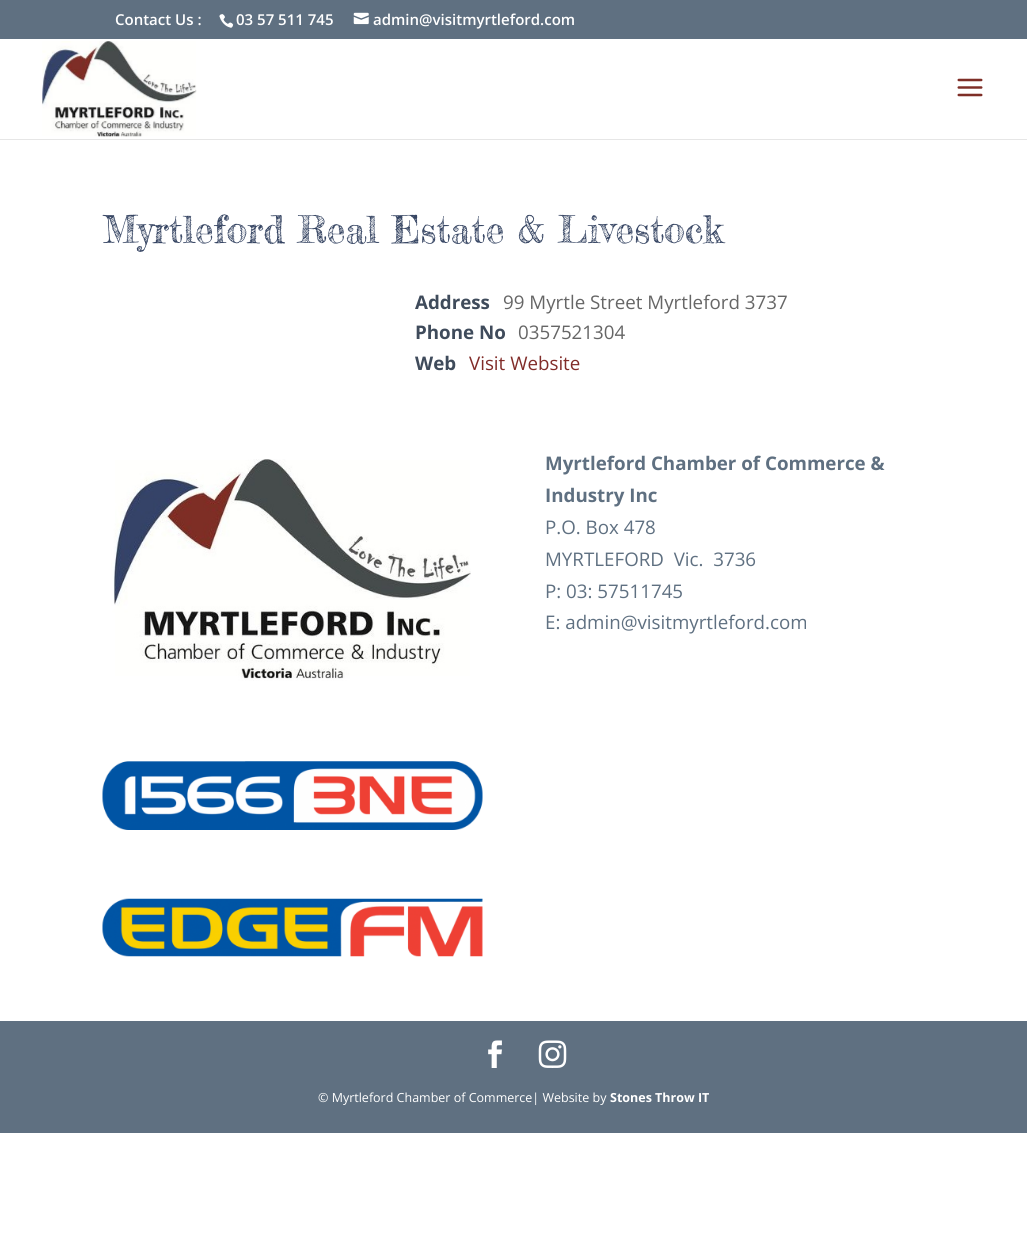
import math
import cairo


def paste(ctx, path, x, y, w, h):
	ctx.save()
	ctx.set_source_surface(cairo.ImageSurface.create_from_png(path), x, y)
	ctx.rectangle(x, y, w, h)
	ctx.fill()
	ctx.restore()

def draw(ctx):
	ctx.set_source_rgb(1, 1, 1)
	ctx.paint()
	ctx.set_source_rgb(0.373, 0.439, 0.506)
	ctx.rectangle(0, 0, 1027, 39)
	ctx.fill()
	ctx.select_font_face('Open Sans SemiBold')
	ctx.set_font_size(15)
	ctx.set_source_rgb(1, 1, 1)
	ctx.move_to(115, 25)
	ctx.show_text('Contact Us :')
	paste(ctx, 'media/1.png', 219, 14, 15, 14)
	ctx.move_to(236, 25)
	ctx.show_text('03 57 511 745')
	paste(ctx, 'media/2.png', 353, 12, 16, 13)
	ctx.move_to(373, 25)
	ctx.show_text('admin@visitmyrtleford.com')
	ctx.set_source_rgb(0.902, 0.902, 0.902)
	ctx.new_path()
	ctx.move_to(0, 139)
	ctx.line_to(0, 140)
	ctx.line_to(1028, 140)
	ctx.line_to(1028, 40)
	ctx.line_to(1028, 139)
	ctx.close_path()
	ctx.fill()
	paste(ctx, 'media/3.png', 42, 41, 155, 96)
	paste(ctx, 'media/4.png', 957, 78, 26, 19)
	ctx.select_font_face('Fredericka the Great')
	ctx.set_font_size(37.5)
	ctx.set_source_rgb(0.208, 0.267, 0.384)
	ctx.move_to(103, 243)
	ctx.show_text('Myrtleford Real Estate & Livestock')
	ctx.select_font_face('Open Sans', cairo.FONT_SLANT_NORMAL, cairo.FONT_WEIGHT_BOLD)
	ctx.set_font_size(18.75)
	ctx.set_source_rgb(0.247, 0.294, 0.357)
	ctx.move_to(415, 309)
	ctx.show_text('Address')
	ctx.select_font_face('Open Sans')
	ctx.set_source_rgb(0.4, 0.4, 0.4)
	ctx.move_to(503, 309)
	ctx.show_text('99 Myrtle Street Myrtleford 3737')
	ctx.select_font_face('Open Sans', cairo.FONT_SLANT_NORMAL, cairo.FONT_WEIGHT_BOLD)
	ctx.set_source_rgb(0.247, 0.294, 0.357)
	ctx.move_to(415, 339)
	ctx.show_text('Phone No')
	ctx.select_font_face('Open Sans')
	ctx.set_source_rgb(0.4, 0.4, 0.4)
	ctx.move_to(518, 339)
	ctx.show_text('0357521304')
	ctx.select_font_face('Open Sans', cairo.FONT_SLANT_NORMAL, cairo.FONT_WEIGHT_BOLD)
	ctx.set_source_rgb(0.247, 0.294, 0.357)
	ctx.move_to(415, 370)
	ctx.show_text('Web')
	ctx.select_font_face('Open Sans')
	ctx.set_source_rgb(0.506, 0.173, 0.161)
	ctx.move_to(469, 370)
	ctx.show_text('Visit Website')
	paste(ctx, 'media/5.png', 111, 459, 360, 222)
	ctx.select_font_face('Open Sans', cairo.FONT_SLANT_NORMAL, cairo.FONT_WEIGHT_BOLD)
	ctx.set_source_rgb(0.373, 0.439, 0.506)
	ctx.move_to(545, 470)
	ctx.show_text('Myrtleford Chamber of Commerce &')
	ctx.move_to(545, 502)
	ctx.show_text('Industry Inc')
	ctx.select_font_face('Open Sans')
	for x, y, s in [
		(545, 534, 'P.O. Box 478'),
		(545, 566, 'MYRTLEFORD  Vic.  3736'),
		(545, 598, 'P: 03: 57511745'),
		(545, 629, 'E: admin@visitmyrtleford.com'),
	]:
		ctx.move_to(x, y)
		ctx.show_text(s)
	paste(ctx, 'media/6.png', 102, 761, 381, 69)
	paste(ctx, 'media/7.png', 102, 898, 381, 59)
	ctx.rectangle(0, 1021, 1027, 112)
	ctx.fill()
	paste(ctx, 'media/8.png', 488, 1040, 14, 28)
	paste(ctx, 'media/9.png', 538, 1040, 29, 28)
	ctx.set_font_size(12.5)
	ctx.set_source_rgb(1, 1, 1)
	ctx.move_to(318, 1102)
	ctx.show_text('© Myrtleford Chamber of Commerce| Website by')
	ctx.select_font_face('Open Sans', cairo.FONT_SLANT_NORMAL, cairo.FONT_WEIGHT_BOLD)
	ctx.move_to(610, 1102)
	ctx.show_text('Stones Throw IT')


surface = cairo.ImageSurface(cairo.FORMAT_RGB24, 1027, 1248)
ctx = cairo.Context(surface)
options = cairo.FontOptions()
options.set_hint_metrics(cairo.HINT_METRICS_OFF)
options.set_hint_style(cairo.HINT_STYLE_NONE)
ctx.set_font_options(options)
ctx.set_miter_limit(4)
draw(ctx)
surface.write_to_png('image.png')
